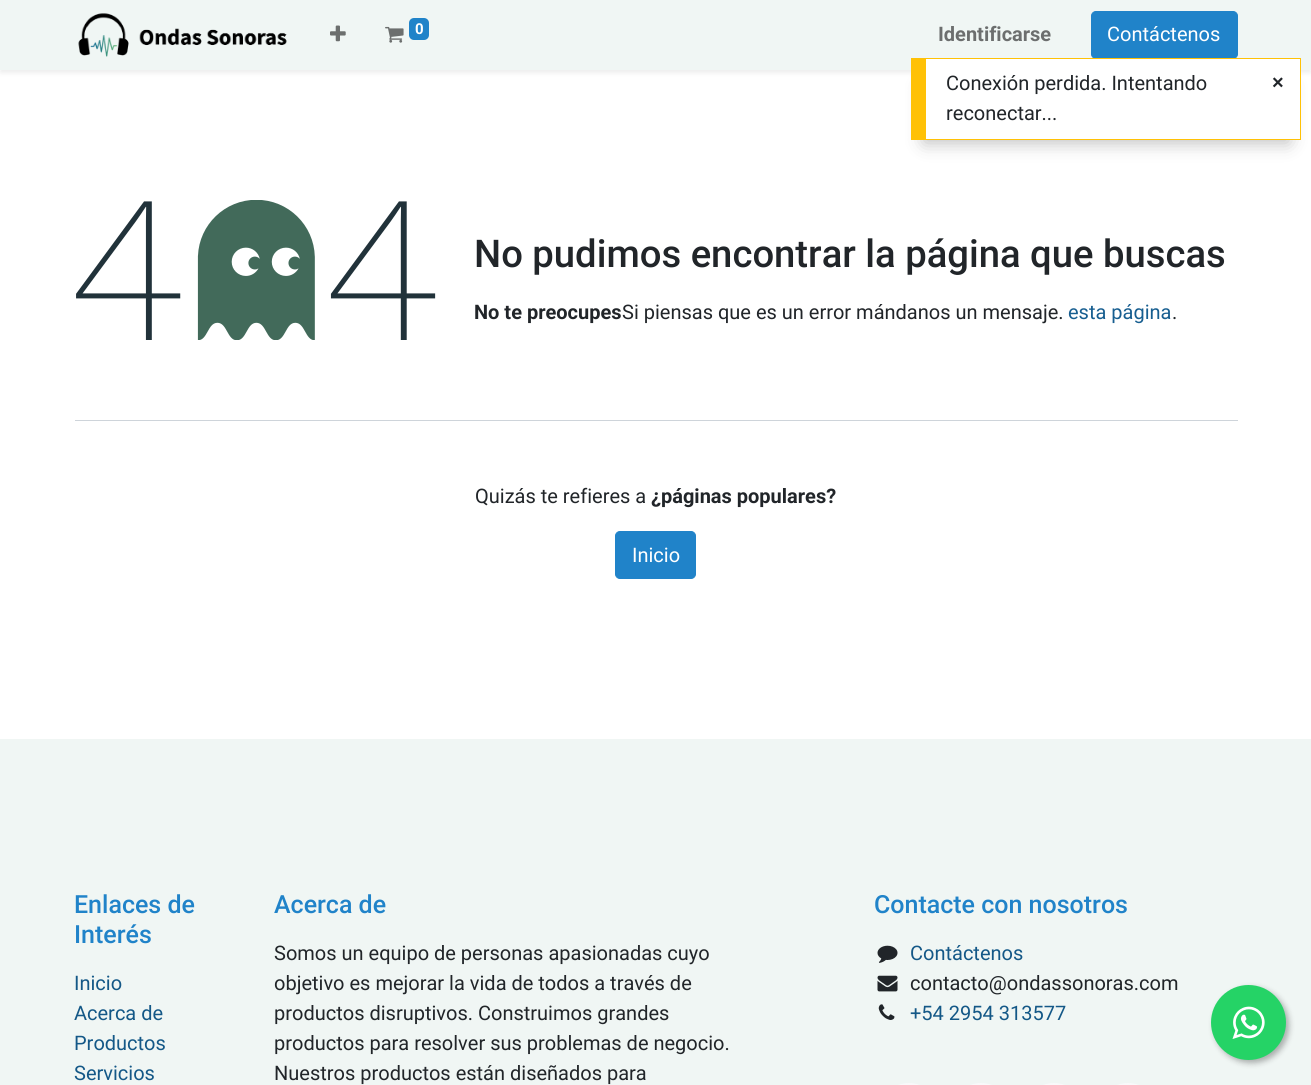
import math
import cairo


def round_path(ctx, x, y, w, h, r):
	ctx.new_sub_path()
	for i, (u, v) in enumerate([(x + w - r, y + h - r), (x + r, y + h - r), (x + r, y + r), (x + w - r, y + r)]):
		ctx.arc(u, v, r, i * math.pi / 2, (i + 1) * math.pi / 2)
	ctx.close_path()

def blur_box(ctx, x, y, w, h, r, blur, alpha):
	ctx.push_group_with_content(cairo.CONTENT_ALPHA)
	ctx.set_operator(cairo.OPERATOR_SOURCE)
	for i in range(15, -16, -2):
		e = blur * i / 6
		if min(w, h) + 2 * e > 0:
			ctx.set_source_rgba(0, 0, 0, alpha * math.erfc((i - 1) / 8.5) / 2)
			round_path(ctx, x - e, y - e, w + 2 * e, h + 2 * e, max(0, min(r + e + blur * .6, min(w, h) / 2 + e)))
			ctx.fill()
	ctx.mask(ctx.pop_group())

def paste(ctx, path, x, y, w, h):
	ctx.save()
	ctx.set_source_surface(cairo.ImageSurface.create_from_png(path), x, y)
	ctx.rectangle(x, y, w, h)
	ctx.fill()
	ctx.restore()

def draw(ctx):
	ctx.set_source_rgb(1, 1, 1)
	ctx.paint()
	ctx.set_source_rgb(0, 0, 0)
	blur_box(ctx, 0, 3, 1311, 70, 0, 2.5, 0.07)
	ctx.set_source_rgb(0.941, 0.961, 0.957)
	ctx.rectangle(0, 0, 1311, 70)
	ctx.fill()
	paste(ctx, 'media/1.png', 78, 13, 209, 44)
	paste(ctx, 'media/2.png', 330, 25, 16, 17)
	paste(ctx, 'media/3.png', 385, 26, 19, 17)
	ctx.set_source_rgb(0.125, 0.514, 0.788)
	round_path(ctx, 409, 18, 20, 22, 5)
	ctx.fill()
	ctx.select_font_face('Roboto', cairo.FONT_SLANT_NORMAL, cairo.FONT_WEIGHT_BOLD)
	ctx.set_font_size(15)
	ctx.set_source_rgb(1, 1, 1)
	ctx.move_to(415, 34)
	ctx.show_text('0')
	ctx.set_font_size(20)
	ctx.set_source_rgb(0.424, 0.431, 0.431)
	ctx.move_to(938, 41)
	ctx.show_text('Identificarse')
	ctx.set_source_rgb(0.125, 0.514, 0.788)
	round_path(ctx, 1091.5, 11.5, 146, 47, 4.5)
	ctx.fill_preserve()
	ctx.set_line_width(1)
	ctx.stroke()
	ctx.select_font_face('Roboto')
	ctx.set_source_rgb(1, 1, 1)
	ctx.move_to(1107, 41)
	ctx.show_text('Contáctenos')
	paste(ctx, 'media/4.png', 76, 200, 360, 140)
	ctx.select_font_face('Roboto Medium')
	ctx.set_font_size(38.25)
	ctx.set_source_rgb(0.129, 0.145, 0.161)
	ctx.move_to(474, 267)
	ctx.show_text('No pudimos encontrar la página que buscas')
	ctx.select_font_face('Roboto', cairo.FONT_SLANT_NORMAL, cairo.FONT_WEIGHT_BOLD)
	ctx.set_font_size(20)
	ctx.move_to(474, 319)
	ctx.show_text('No te preocupes')
	ctx.select_font_face('Roboto')
	ctx.move_to(622, 319)
	ctx.show_text('Si piensas que es un error mándanos un mensaje.')
	ctx.set_source_rgb(0.09, 0.369, 0.565)
	ctx.move_to(1068, 319)
	ctx.show_text('esta página')
	ctx.set_source_rgb(0.129, 0.145, 0.161)
	ctx.move_to(1172, 319)
	ctx.show_text('.')
	ctx.set_source_rgb(0.808, 0.831, 0.855)
	ctx.rectangle(75, 420, 1163, 1)
	ctx.fill()
	ctx.set_source_rgb(0.129, 0.145, 0.161)
	ctx.move_to(475, 503)
	ctx.show_text('Quizás te refieres a')
	ctx.select_font_face('Roboto', cairo.FONT_SLANT_NORMAL, cairo.FONT_WEIGHT_BOLD)
	ctx.move_to(651, 503)
	ctx.show_text('¿páginas populares?')
	ctx.set_source_rgb(0.125, 0.514, 0.788)
	round_path(ctx, 615.5, 531.5, 80, 47, 4.5)
	ctx.fill_preserve()
	ctx.stroke()
	ctx.select_font_face('Roboto')
	ctx.set_source_rgb(1, 1, 1)
	ctx.move_to(632, 562)
	ctx.show_text('Inicio')
	ctx.set_source_rgb(0.941, 0.961, 0.957)
	ctx.rectangle(0, 739, 1311, 346)
	ctx.fill()
	ctx.select_font_face('Roboto Medium')
	ctx.set_font_size(25)
	ctx.set_source_rgb(0.125, 0.514, 0.788)
	ctx.move_to(74, 913)
	ctx.show_text('Enlaces de')
	ctx.move_to(74, 943)
	ctx.show_text('Interés')
	ctx.select_font_face('Roboto')
	ctx.set_font_size(20)
	ctx.set_source_rgb(0.082, 0.345, 0.529)
	for x, y, s in [
		(74, 990, 'Inicio'),
		(74, 1020, 'Acerca de'),
		(74, 1050, 'Productos'),
		(74, 1080, 'Servicios'),
	]:
		ctx.move_to(x, y)
		ctx.show_text(s)
	ctx.select_font_face('Roboto Medium')
	ctx.set_font_size(25)
	ctx.set_source_rgb(0.125, 0.514, 0.788)
	ctx.move_to(274, 913)
	ctx.show_text('Acerca de')
	ctx.select_font_face('Roboto')
	ctx.set_font_size(20)
	ctx.set_source_rgb(0.129, 0.145, 0.161)
	for x, y, s in [
		(274, 960, 'Somos un equipo de personas apasionadas cuyo'),
		(274, 990, 'objetivo es mejorar la vida de todos a través de'),
		(274, 1020, 'productos disruptivos. Construimos grandes'),
		(274, 1050, 'productos para resolver sus problemas de negocio.'),
		(274, 1080, 'Nuestros productos están diseñados para'),
	]:
		ctx.move_to(x, y)
		ctx.show_text(s)
	ctx.select_font_face('Roboto Medium')
	ctx.set_font_size(25)
	ctx.set_source_rgb(0.125, 0.514, 0.788)
	ctx.move_to(874, 913)
	ctx.show_text('Contacte con nosotros')
	paste(ctx, 'media/5.png', 877, 945, 21, 18)
	ctx.select_font_face('Roboto')
	ctx.set_font_size(20)
	ctx.set_source_rgb(0.082, 0.345, 0.529)
	ctx.move_to(910, 960)
	ctx.show_text('Contáctenos')
	paste(ctx, 'media/6.png', 877, 975, 21, 17)
	ctx.set_source_rgb(0.129, 0.145, 0.161)
	ctx.move_to(910, 990)
	ctx.show_text('contacto@ondassonoras.com')
	paste(ctx, 'media/7.png', 878, 1004, 17, 16)
	ctx.set_source_rgb(0.082, 0.345, 0.529)
	ctx.move_to(910, 1020)
	ctx.show_text('+54 2954 313577')
	ctx.set_source_rgb(0.973, 0.976, 0.98)
	ctx.new_path()
	ctx.move_to(909, 1083)
	ctx.curve_to(925.5, 1083, 939, 1096.5, 939, 1113)
	ctx.line_to(939, 1085)
	ctx.line_to(879, 1085)
	ctx.line_to(879, 1113)
	ctx.curve_to(879, 1096.5, 892.5, 1083, 909, 1083)
	ctx.close_path()
	ctx.fill()
	ctx.new_path()
	ctx.move_to(981, 1083)
	ctx.curve_to(997.5, 1083, 1011, 1096.5, 1011, 1113)
	ctx.line_to(1011, 1085)
	ctx.line_to(951, 1085)
	ctx.line_to(951, 1113)
	ctx.curve_to(951, 1096.5, 964.5, 1083, 981, 1083)
	ctx.close_path()
	ctx.fill()
	ctx.new_path()
	ctx.move_to(1054, 1083)
	ctx.curve_to(1070.5, 1083, 1084, 1096.5, 1084, 1113)
	ctx.line_to(1084, 1085)
	ctx.line_to(1024, 1085)
	ctx.line_to(1024, 1113)
	ctx.curve_to(1024, 1096.5, 1037.5, 1083, 1054, 1083)
	ctx.close_path()
	ctx.fill()
	ctx.new_path()
	ctx.move_to(1128, 1083)
	ctx.curve_to(1144.5, 1083, 1158, 1096.5, 1158, 1113)
	ctx.line_to(1158, 1085)
	ctx.line_to(1098, 1085)
	ctx.line_to(1098, 1113)
	ctx.curve_to(1098, 1096.5, 1111.5, 1083, 1128, 1083)
	ctx.close_path()
	ctx.fill()
	ctx.set_source_rgb(0, 0, 0)
	blur_box(ctx, 924, 85, 365, 58, 0, 9, 0.25)
	ctx.set_source_rgb(1, 1, 1)
	ctx.rectangle(926, 59, 374, 80)
	ctx.fill()
	ctx.set_source_rgb(1, 0.757, 0.027)
	ctx.rectangle(926, 58, 375, 1)
	ctx.rectangle(1300, 58, 1, 82)
	ctx.rectangle(926, 139, 375, 1)
	ctx.rectangle(911, 58, 15, 82)
	ctx.fill()
	ctx.set_source_rgb(0.129, 0.145, 0.161)
	ctx.move_to(946, 90)
	ctx.show_text('Conexión perdida. Intentando')
	ctx.move_to(946, 120)
	ctx.show_text('reconectar...')
	ctx.select_font_face('Liberation Sans', cairo.FONT_SLANT_NORMAL, cairo.FONT_WEIGHT_BOLD)
	ctx.move_to(1272, 89)
	ctx.show_text('×')
	ctx.set_source_rgb(0, 0, 0)
	blur_box(ctx, 1214, 988, 75, 75, 37.5, 3, 0.3)
	ctx.set_source_rgb(0.145, 0.827, 0.4)
	ctx.arc(1248.5, 1022.5, 37.5, 0, 2 * math.pi)
	ctx.fill()
	paste(ctx, 'media/8.png', 1232, 1006, 33, 33)


surface = cairo.ImageSurface(cairo.FORMAT_RGB24, 1311, 1085)
ctx = cairo.Context(surface)
options = cairo.FontOptions()
options.set_hint_metrics(cairo.HINT_METRICS_OFF)
options.set_hint_style(cairo.HINT_STYLE_NONE)
ctx.set_font_options(options)
ctx.set_miter_limit(4)
draw(ctx)
surface.write_to_png('image.png')
